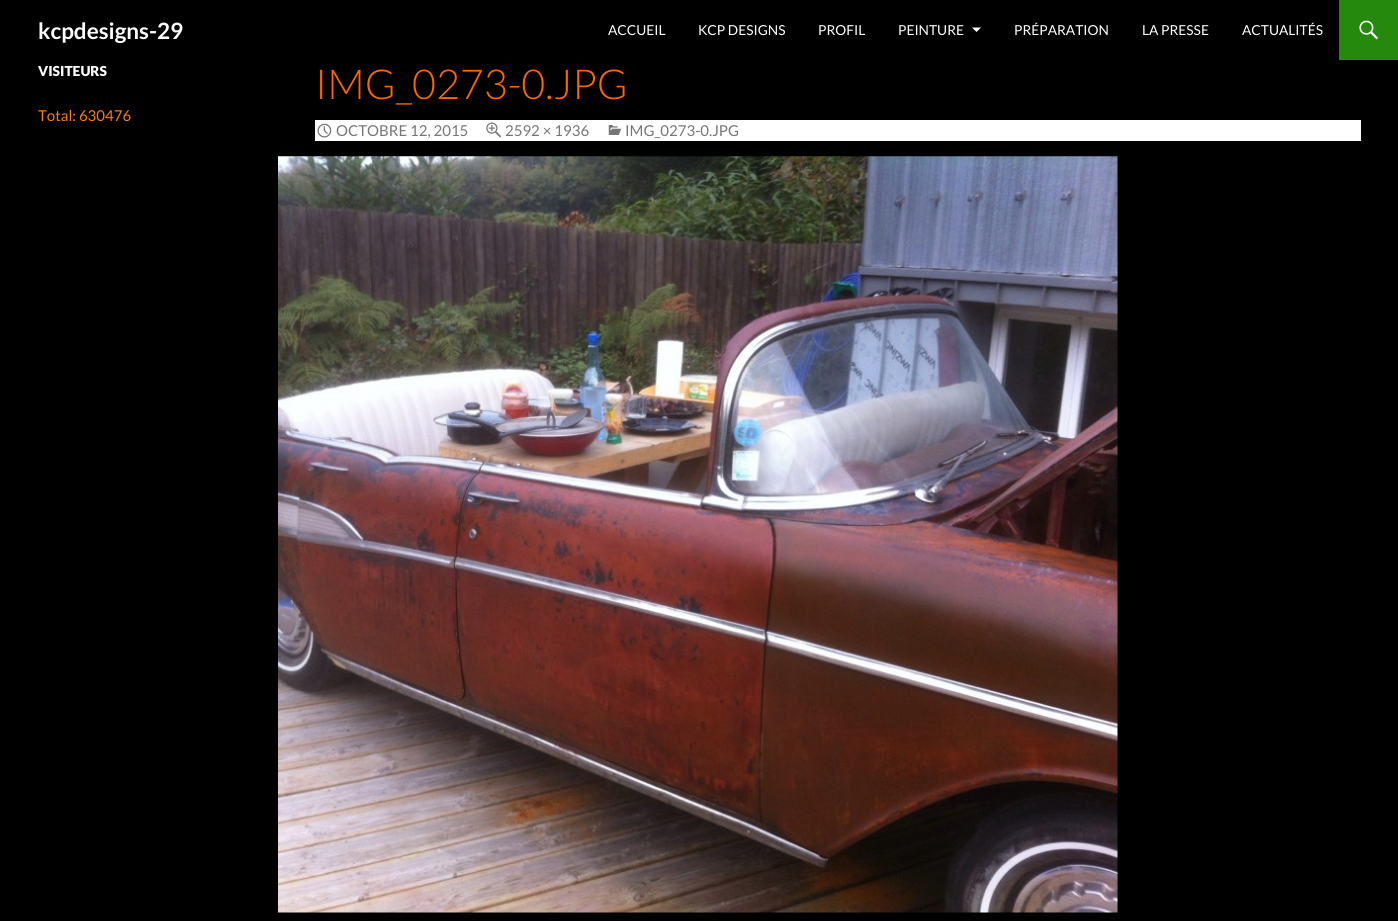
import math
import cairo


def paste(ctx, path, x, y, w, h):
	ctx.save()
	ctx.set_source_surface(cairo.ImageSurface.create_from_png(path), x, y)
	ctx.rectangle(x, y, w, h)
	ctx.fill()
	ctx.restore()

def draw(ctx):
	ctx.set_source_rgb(0, 0, 0)
	ctx.paint()
	ctx.select_font_face('Lato', cairo.FONT_SLANT_NORMAL, cairo.FONT_WEIGHT_BOLD)
	ctx.set_font_size(22.5)
	ctx.set_source_rgb(1, 1, 1)
	ctx.move_to(38, 39)
	ctx.show_text('kcpdesigns-29')
	ctx.select_font_face('Lato')
	ctx.set_font_size(13.75)
	for x, y, s in [
		(608, 35, 'ACCUEIL'),
		(698, 35, 'KCP DESIGNS'),
		(818, 35, 'PROFIL'),
		(898, 35, 'PEINTURE'),
	]:
		ctx.move_to(x, y)
		ctx.show_text(s)
	ctx.new_path()
	ctx.move_to(972, 27.5)
	ctx.line_to(981, 27.5)
	ctx.line_to(976.5, 32)
	ctx.close_path()
	ctx.fill()
	for x, y, s in [
		(1014, 35, 'PRÉPARATION'),
		(1142, 35, 'LA PRESSE'),
		(1242, 35, 'ACTUALITÉS'),
	]:
		ctx.move_to(x, y)
		ctx.show_text(s)
	ctx.set_source_rgb(0.141, 0.537, 0.051)
	ctx.rectangle(1339, 0, 59, 60)
	ctx.fill()
	paste(ctx, 'media/1.png', 1359, 20, 19, 20)
	ctx.select_font_face('Lato Black')
	ctx.set_source_rgb(1, 1, 1)
	ctx.move_to(38, 76)
	ctx.show_text('VISITEURS')
	ctx.select_font_face('Lato')
	ctx.set_font_size(15)
	ctx.set_source_rgb(0.976, 0.486, 0.055)
	ctx.move_to(38, 121)
	ctx.show_text('Total: 630476')
	ctx.select_font_face('Lato Light')
	ctx.set_font_size(41.25)
	ctx.set_source_rgb(1, 0.4, 0)
	ctx.move_to(315, 99)
	ctx.show_text('IMG_0273-0.JPG')
	ctx.set_source_rgb(1, 1, 1)
	ctx.rectangle(315, 120, 1046, 21)
	ctx.fill()
	paste(ctx, 'media/2.png', 317, 123, 15, 15)
	ctx.select_font_face('Lato')
	ctx.set_font_size(15)
	ctx.set_source_rgb(0.463, 0.463, 0.463)
	ctx.move_to(336, 136)
	ctx.show_text('OCTOBRE 12, 2015')
	paste(ctx, 'media/3.png', 486, 122, 16, 16)
	ctx.move_to(505, 136)
	ctx.show_text('2592 × 1936')
	paste(ctx, 'media/4.png', 608, 125, 14, 10)
	ctx.move_to(625, 136)
	ctx.show_text('IMG_0273-0.JPG')
	paste(ctx, 'media/5.png', 278, 156, 840, 757)


surface = cairo.ImageSurface(cairo.FORMAT_RGB24, 1398, 921)
ctx = cairo.Context(surface)
options = cairo.FontOptions()
options.set_hint_metrics(cairo.HINT_METRICS_OFF)
options.set_hint_style(cairo.HINT_STYLE_NONE)
ctx.set_font_options(options)
ctx.set_miter_limit(4)
draw(ctx)
surface.write_to_png('image.png')
